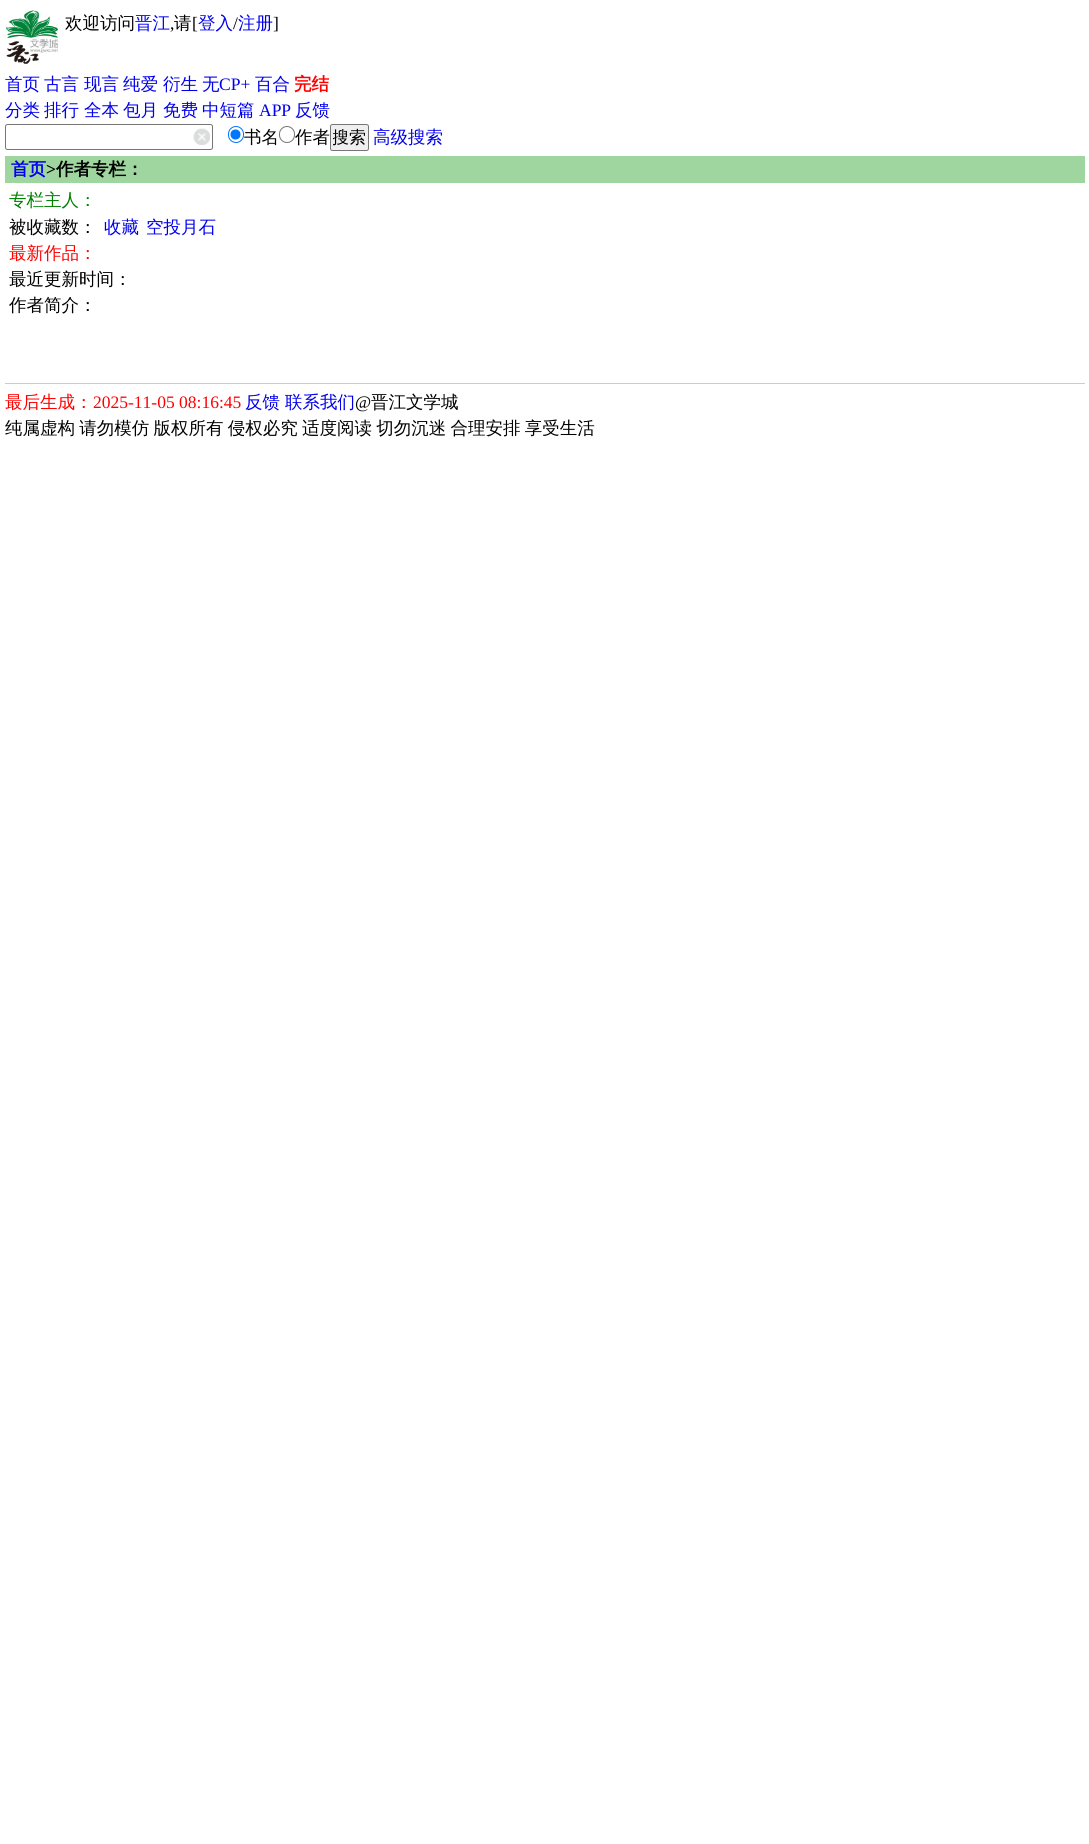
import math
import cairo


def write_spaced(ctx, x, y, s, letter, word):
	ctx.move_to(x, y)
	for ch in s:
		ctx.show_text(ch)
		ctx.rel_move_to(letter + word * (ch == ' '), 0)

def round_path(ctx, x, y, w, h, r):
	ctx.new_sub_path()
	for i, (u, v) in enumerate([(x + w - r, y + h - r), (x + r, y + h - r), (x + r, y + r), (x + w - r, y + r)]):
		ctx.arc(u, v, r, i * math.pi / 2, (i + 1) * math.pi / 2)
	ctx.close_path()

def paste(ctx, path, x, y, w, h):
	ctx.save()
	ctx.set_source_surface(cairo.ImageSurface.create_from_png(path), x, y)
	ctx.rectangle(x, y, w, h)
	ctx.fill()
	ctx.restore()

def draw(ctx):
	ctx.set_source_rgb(1, 1, 1)
	ctx.paint()
	paste(ctx, 'media/1.png', 5, 10, 53, 54)
	ctx.select_font_face('WenQuanYi Zen Hei Medium')
	ctx.set_font_size(17.5)
	ctx.set_source_rgb(0, 0, 0)
	ctx.move_to(65, 29)
	ctx.show_text('欢迎访问')
	ctx.set_source_rgb(0, 0, 0.933)
	ctx.move_to(135, 29)
	ctx.show_text('晋江')
	ctx.select_font_face('Liberation Serif')
	ctx.set_source_rgb(0, 0, 0)
	ctx.move_to(170, 29)
	ctx.show_text(',')
	ctx.select_font_face('WenQuanYi Zen Hei Medium')
	ctx.move_to(174, 29)
	ctx.show_text('请')
	ctx.select_font_face('Liberation Serif')
	ctx.move_to(192, 29)
	ctx.show_text('[')
	ctx.select_font_face('WenQuanYi Zen Hei Medium')
	ctx.set_source_rgb(0, 0, 0.933)
	ctx.move_to(198, 29)
	ctx.show_text('登入')
	ctx.select_font_face('Liberation Serif')
	ctx.set_source_rgb(0, 0, 0)
	ctx.move_to(233, 29)
	ctx.show_text('/')
	ctx.select_font_face('WenQuanYi Zen Hei Medium')
	ctx.set_source_rgb(0, 0, 0.933)
	ctx.move_to(238, 29)
	ctx.show_text('注册')
	ctx.select_font_face('Liberation Serif')
	ctx.set_source_rgb(0, 0, 0)
	ctx.move_to(273, 29)
	ctx.show_text(']')
	ctx.select_font_face('WenQuanYi Zen Hei Medium')
	ctx.set_source_rgb(0, 0, 0.933)
	for x, y, s in [
		(5, 90, '首页'),
		(44, 90, '古言'),
		(84, 90, '现言'),
		(123, 90, '纯爱'),
		(163, 90, '衍生'),
		(202, 90, '无'),
	]:
		ctx.move_to(x, y)
		ctx.show_text(s)
	ctx.select_font_face('Liberation Serif')
	ctx.move_to(219, 90)
	ctx.show_text('CP+')
	ctx.select_font_face('WenQuanYi Zen Hei Medium')
	ctx.move_to(255, 90)
	ctx.show_text('百合')
	ctx.select_font_face('WenQuanYi Zen Hei', cairo.FONT_SLANT_NORMAL, cairo.FONT_WEIGHT_BOLD)
	ctx.set_source_rgb(1, 0, 0)
	ctx.move_to(294, 90)
	ctx.show_text('完结')
	ctx.select_font_face('WenQuanYi Zen Hei Medium')
	ctx.set_source_rgb(0, 0, 0.933)
	for x, y, s in [
		(5, 116, '分类'),
		(44, 116, '排行'),
		(84, 116, '全本'),
		(123, 116, '包月'),
		(163, 116, '免费'),
		(202, 116, '中短篇'),
	]:
		ctx.move_to(x, y)
		ctx.show_text(s)
	ctx.select_font_face('Liberation Serif')
	ctx.move_to(259, 116)
	ctx.show_text('APP')
	ctx.select_font_face('WenQuanYi Zen Hei Medium')
	ctx.move_to(295, 116)
	ctx.show_text('反馈')
	round_path(ctx, 5.5, 124.5, 207, 25, 2)
	ctx.set_source_rgb(0.463, 0.463, 0.463)
	ctx.set_line_width(1)
	ctx.stroke()
	paste(ctx, 'media/2.png', 193, 128, 17, 17)
	round_path(ctx, 228.5, 126.5, 15, 16, 7.5)
	ctx.set_source_rgb(0, 0.459, 1)
	ctx.stroke()
	ctx.arc(235.5, 134.5, 5, 0, 2 * math.pi)
	ctx.fill()
	ctx.set_source_rgb(0, 0, 0)
	ctx.move_to(244, 143)
	ctx.show_text('书名')
	round_path(ctx, 279.5, 126.5, 15, 16, 7.5)
	ctx.set_source_rgb(0.463, 0.463, 0.463)
	ctx.stroke()
	ctx.set_source_rgb(0, 0, 0)
	ctx.move_to(295, 143)
	ctx.show_text('作者')
	ctx.set_source_rgb(0.937, 0.937, 0.937)
	round_path(ctx, 330.5, 124.5, 38, 26, 2)
	ctx.fill_preserve()
	ctx.set_source_rgb(0.463, 0.463, 0.463)
	ctx.stroke()
	ctx.save()
	ctx.rectangle(333, 126, 33, 23)
	ctx.clip()
	ctx.set_font_size(17)
	ctx.set_source_rgb(0, 0, 0)
	ctx.move_to(332, 143)
	ctx.show_text('搜索')
	ctx.restore()
	ctx.set_source_rgb(0, 0, 0.933)
	ctx.move_to(373, 143)
	ctx.show_text('高级搜索')
	ctx.set_source_rgb(0.624, 0.835, 0.62)
	ctx.rectangle(5, 156, 1080, 27)
	ctx.fill()
	ctx.select_font_face('WenQuanYi Zen Hei', cairo.FONT_SLANT_NORMAL, cairo.FONT_WEIGHT_BOLD)
	ctx.set_source_rgb(0, 0, 0.933)
	ctx.move_to(11, 175)
	ctx.show_text('首页')
	ctx.select_font_face('Liberation Serif', cairo.FONT_SLANT_NORMAL, cairo.FONT_WEIGHT_BOLD)
	ctx.set_source_rgb(0, 0, 0)
	ctx.move_to(46, 175)
	ctx.show_text('>')
	ctx.select_font_face('WenQuanYi Zen Hei', cairo.FONT_SLANT_NORMAL, cairo.FONT_WEIGHT_BOLD)
	ctx.move_to(56, 175)
	ctx.show_text('作者专栏：')
	ctx.select_font_face('WenQuanYi Zen Hei Medium')
	ctx.set_source_rgb(0, 0.502, 0)
	ctx.move_to(9, 206)
	ctx.show_text('专栏主人：')
	ctx.set_source_rgb(0, 0, 0)
	ctx.move_to(9, 233)
	ctx.show_text('被收藏数：')
	ctx.set_source_rgb(0, 0, 0.933)
	ctx.move_to(104, 233)
	ctx.show_text('收藏')
	ctx.move_to(146, 233)
	ctx.show_text('空投月石')
	ctx.set_source_rgb(1, 0, 0)
	ctx.move_to(9, 259)
	ctx.show_text('最新作品：')
	ctx.set_source_rgb(0, 0, 0)
	ctx.move_to(9, 285)
	ctx.show_text('最近更新时间：')
	ctx.move_to(9, 311)
	ctx.show_text('作者简介：')
	ctx.set_source_rgb(0.8, 0.8, 0.8)
	ctx.rectangle(5, 383, 1080, 1)
	ctx.fill()
	ctx.set_source_rgb(1, 0, 0)
	ctx.move_to(5, 408)
	ctx.show_text('最后生成：')
	ctx.select_font_face('Liberation Serif')
	ctx.move_to(93, 408)
	ctx.show_text('2025-11-05 08:16:45')
	ctx.select_font_face('WenQuanYi Zen Hei Medium')
	ctx.set_source_rgb(0, 0, 0.933)
	ctx.move_to(245, 408)
	ctx.show_text('反馈')
	ctx.move_to(285, 408)
	ctx.show_text('联系我们')
	ctx.select_font_face('Liberation Serif')
	ctx.set_source_rgb(0, 0, 0)
	ctx.move_to(355, 408)
	ctx.show_text('@')
	ctx.select_font_face('WenQuanYi Zen Hei Medium')
	ctx.move_to(371, 408)
	ctx.show_text('晋江文学城')
	write_spaced(ctx, 5, 434, '纯属虚构 请勿模仿 版权所有 侵权必究 适度阅读 切勿沉迷 合理安排 享受生活', 0, -1)


surface = cairo.ImageSurface(cairo.FORMAT_RGB24, 1089, 1844)
ctx = cairo.Context(surface)
options = cairo.FontOptions()
options.set_hint_metrics(cairo.HINT_METRICS_OFF)
options.set_hint_style(cairo.HINT_STYLE_NONE)
ctx.set_font_options(options)
ctx.set_miter_limit(4)
draw(ctx)
surface.write_to_png('image.png')
